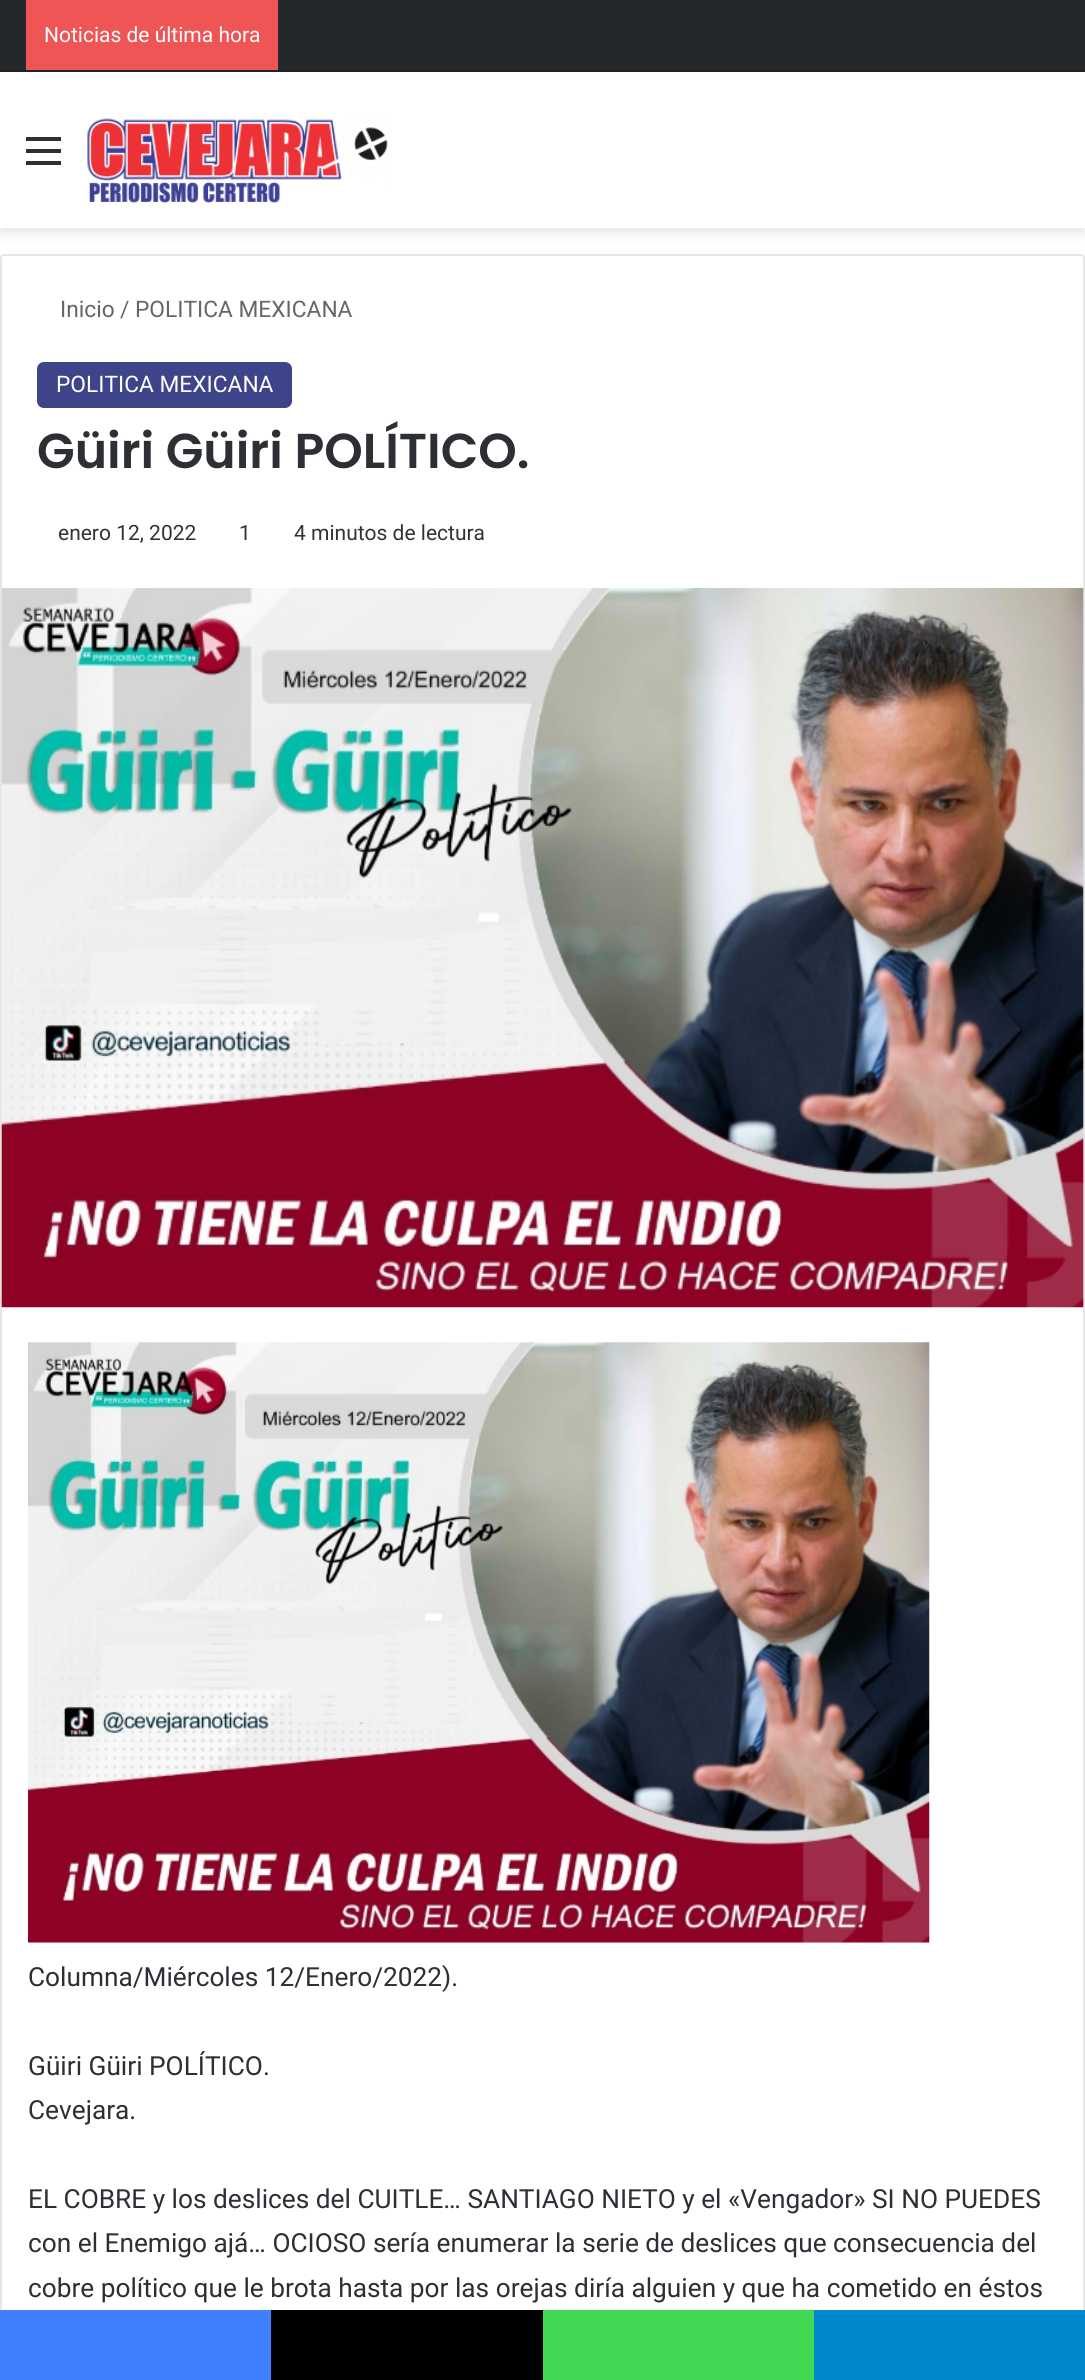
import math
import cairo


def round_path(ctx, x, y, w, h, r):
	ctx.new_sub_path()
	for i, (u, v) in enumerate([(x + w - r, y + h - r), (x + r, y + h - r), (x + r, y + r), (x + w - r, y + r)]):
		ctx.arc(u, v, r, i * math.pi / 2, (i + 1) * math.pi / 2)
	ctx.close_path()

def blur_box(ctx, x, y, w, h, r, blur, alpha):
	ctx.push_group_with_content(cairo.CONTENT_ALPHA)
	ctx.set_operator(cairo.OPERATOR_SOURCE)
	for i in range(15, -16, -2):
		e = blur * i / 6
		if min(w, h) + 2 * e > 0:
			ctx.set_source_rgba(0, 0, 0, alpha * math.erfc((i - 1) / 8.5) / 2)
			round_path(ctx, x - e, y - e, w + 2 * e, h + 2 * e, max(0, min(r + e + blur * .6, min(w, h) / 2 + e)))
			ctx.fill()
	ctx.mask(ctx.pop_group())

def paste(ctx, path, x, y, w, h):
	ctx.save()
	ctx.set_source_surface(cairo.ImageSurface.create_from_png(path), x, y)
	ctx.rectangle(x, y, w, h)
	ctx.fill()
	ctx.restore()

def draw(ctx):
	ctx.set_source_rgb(1, 1, 1)
	ctx.paint()
	ctx.set_source_rgb(0, 0, 0)
	blur_box(ctx, 0, 77, 1085, 156, 0, 6, 0.1)
	ctx.set_source_rgb(0.145, 0.157, 0.169)
	ctx.rectangle(0, 0, 1085, 70)
	ctx.fill()
	ctx.set_source_rgb(0.129, 0.141, 0.153)
	ctx.rectangle(0, 70, 1085, 2)
	ctx.fill()
	ctx.set_source_rgb(0.941, 0.333, 0.333)
	ctx.rectangle(26, 0, 252, 70)
	ctx.fill()
	ctx.select_font_face('Roboto')
	ctx.set_font_size(21)
	ctx.set_source_rgb(1, 1, 1)
	ctx.move_to(44, 42)
	ctx.show_text('Noticias de última hora')
	ctx.rectangle(0, 72, 1085, 156)
	ctx.fill()
	ctx.set_source_rgb(0.173, 0.184, 0.204)
	ctx.rectangle(26, 149, 35, 4)
	ctx.rectangle(26, 137, 35, 4)
	ctx.rectangle(26, 161, 35, 4)
	ctx.fill()
	paste(ctx, 'media/1.png', 87, 118, 301, 85)
	round_path(ctx, 1, 255, 1083, 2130, 3)
	ctx.set_source_rgb(0.902, 0.902, 0.902)
	ctx.stroke()
	ctx.set_font_size(22.75)
	ctx.set_source_rgb(0.4, 0.4, 0.4)
	for x, y, s in [
		(60, 317, 'Inicio'),
		(120, 317, '/'),
		(135, 317, 'POLITICA MEXICANA'),
	]:
		ctx.move_to(x, y)
		ctx.show_text(s)
	ctx.set_source_rgb(0.243, 0.267, 0.541)
	round_path(ctx, 37, 362, 255, 46, 7)
	ctx.fill()
	ctx.set_source_rgb(1, 1, 1)
	ctx.move_to(56, 392)
	ctx.show_text('POLITICA MEXICANA')
	ctx.select_font_face('Poppins SemiBold')
	ctx.set_font_size(49)
	ctx.set_source_rgb(0.173, 0.184, 0.204)
	ctx.move_to(37, 468)
	ctx.show_text('Güiri Güiri POLÍTICO.')
	ctx.select_font_face('Roboto')
	ctx.set_font_size(21)
	ctx.set_source_rgb(0.2, 0.2, 0.2)
	for x, y, s in [
		(58, 540, 'enero 12, 2022'),
		(239, 540, '1'),
		(294, 540, '4 minutos de lectura'),
	]:
		ctx.move_to(x, y)
		ctx.show_text(s)
	paste(ctx, 'media/2.png', 1, 588, 1083, 720)
	paste(ctx, 'media/3.png', 28, 1342, 902, 601)
	ctx.set_font_size(26.25)
	ctx.set_source_rgb(0.173, 0.184, 0.204)
	for x, y, s in [
		(28, 1986, 'Columna/Miércoles 12/Enero/2022).'),
		(28, 2075, 'Güiri Güiri POLÍTICO.'),
		(28, 2119, 'Cevejara.'),
		(28, 2208, 'EL COBRE y los deslices del CUITLE… SANTIAGO NIETO y el «Vengador» SI NO PUEDES'),
		(28, 2252, 'con el Enemigo ajá… OCIOSO sería enumerar la serie de deslices que consecuencia del'),
		(28, 2297, 'cobre político que le brota hasta por las orejas diría alguien y que ha cometido en éstos'),
	]:
		ctx.move_to(x, y)
		ctx.show_text(s)
	ctx.set_source_rgb(0.251, 0.502, 1)
	ctx.rectangle(0, 2310, 271, 70)
	ctx.fill()
	ctx.set_source_rgb(0, 0, 0)
	ctx.rectangle(271, 2310, 272, 70)
	ctx.fill()
	ctx.set_source_rgb(0.263, 0.847, 0.329)
	ctx.rectangle(543, 2310, 271, 70)
	ctx.fill()
	ctx.set_source_rgb(0, 0.533, 0.8)
	ctx.rectangle(814, 2310, 271, 70)
	ctx.fill()


surface = cairo.ImageSurface(cairo.FORMAT_RGB24, 1085, 2380)
ctx = cairo.Context(surface)
options = cairo.FontOptions()
options.set_hint_metrics(cairo.HINT_METRICS_OFF)
options.set_hint_style(cairo.HINT_STYLE_NONE)
ctx.set_font_options(options)
ctx.set_miter_limit(4)
draw(ctx)
surface.write_to_png('image.png')
